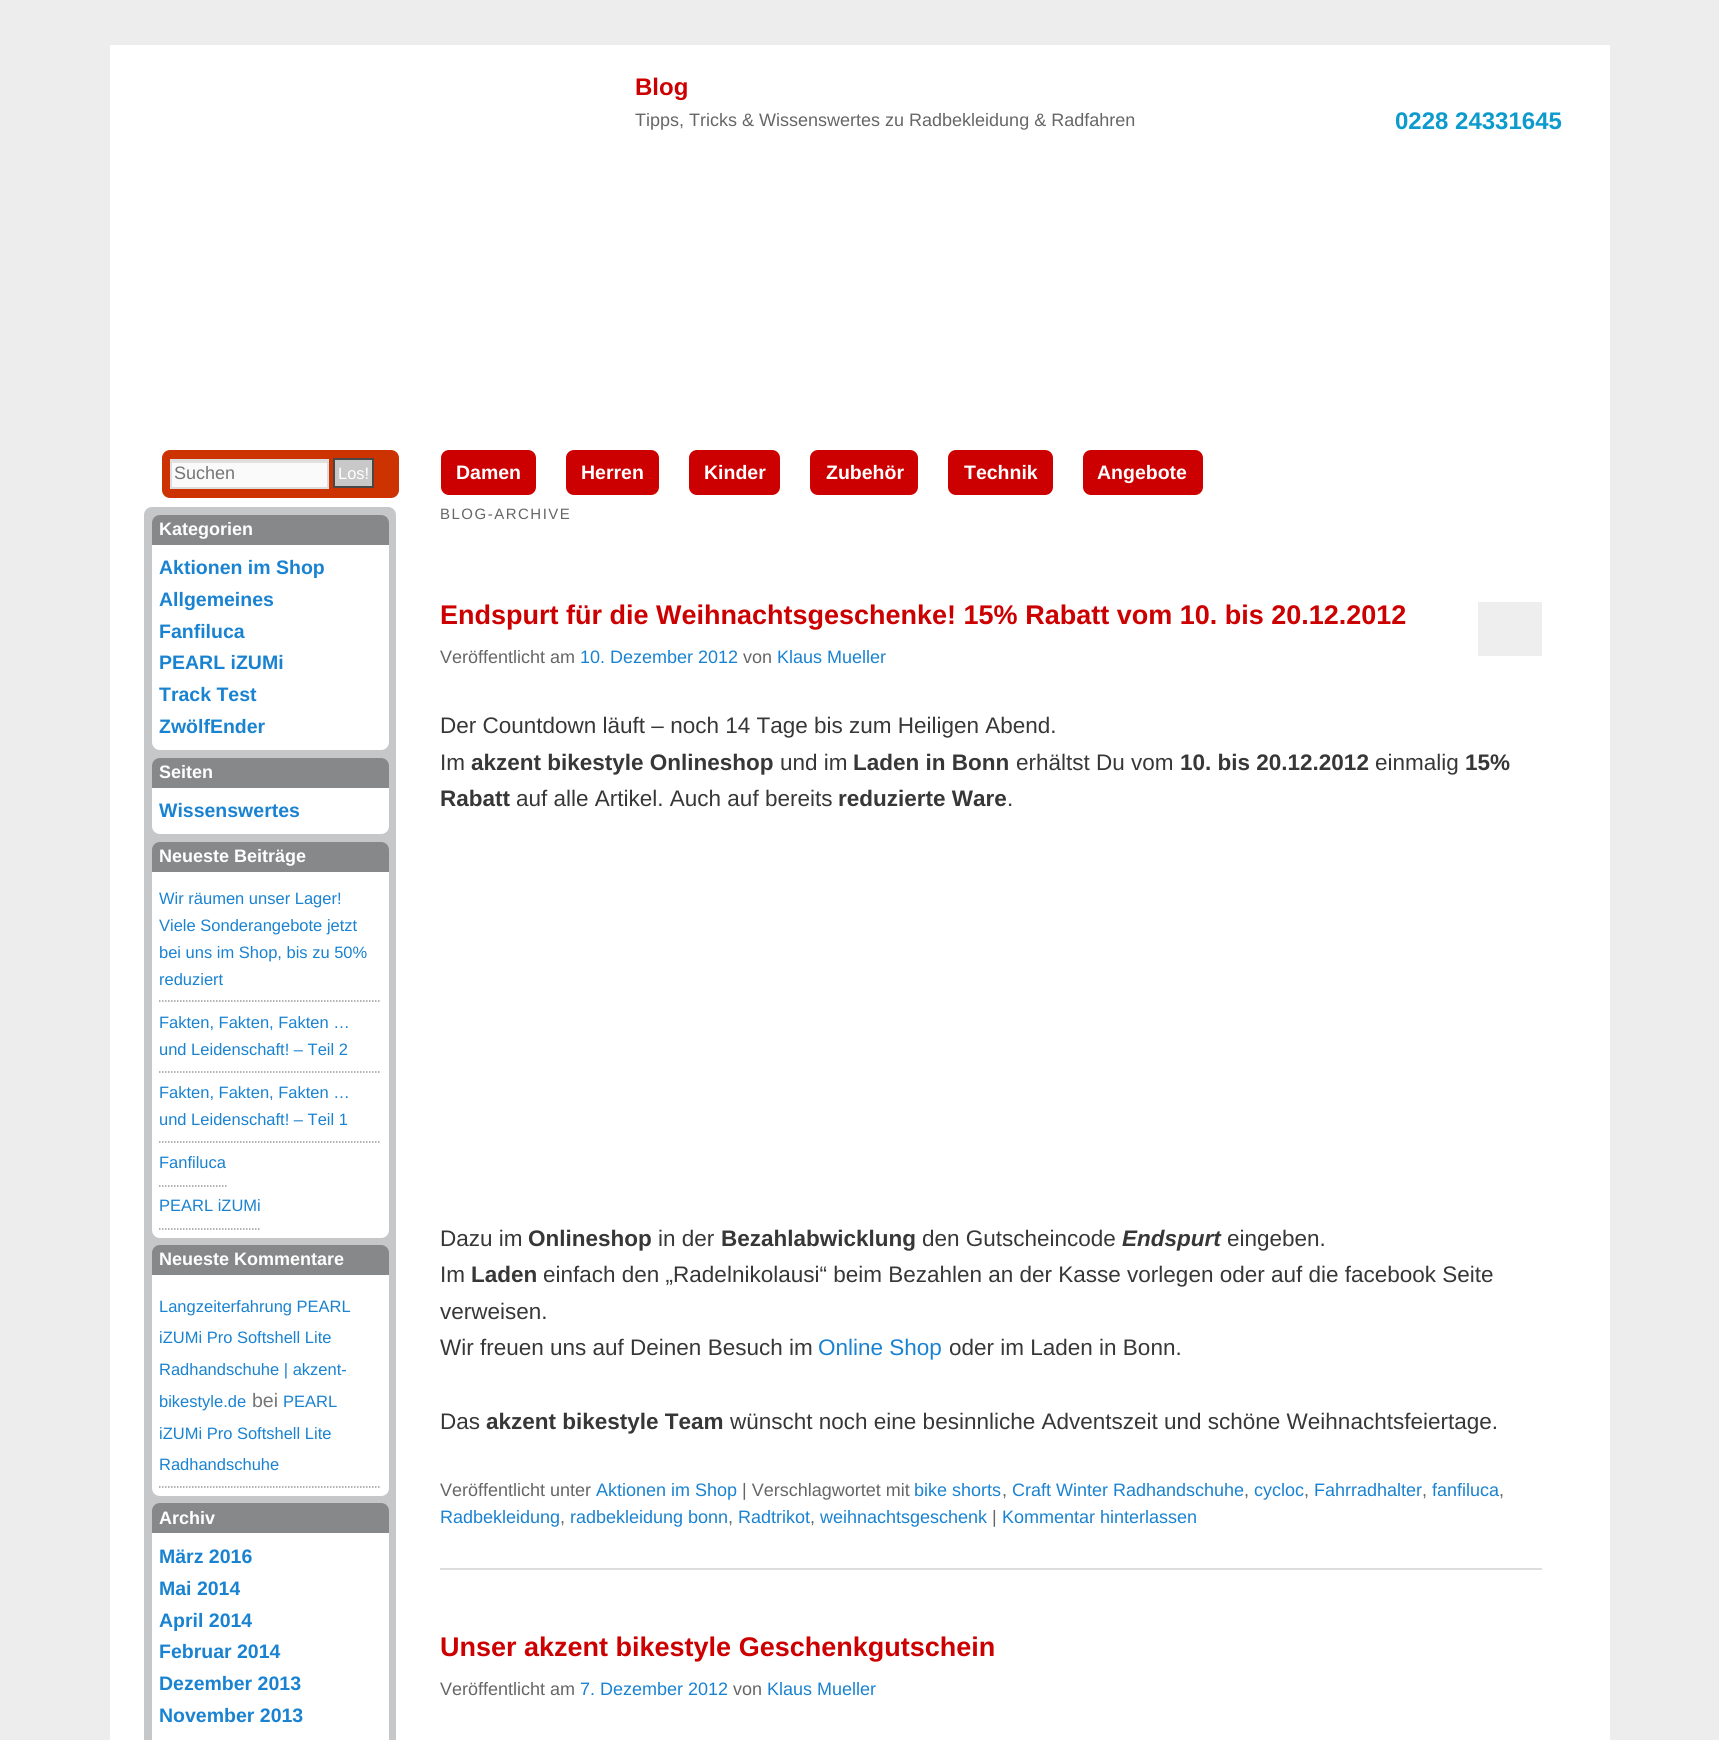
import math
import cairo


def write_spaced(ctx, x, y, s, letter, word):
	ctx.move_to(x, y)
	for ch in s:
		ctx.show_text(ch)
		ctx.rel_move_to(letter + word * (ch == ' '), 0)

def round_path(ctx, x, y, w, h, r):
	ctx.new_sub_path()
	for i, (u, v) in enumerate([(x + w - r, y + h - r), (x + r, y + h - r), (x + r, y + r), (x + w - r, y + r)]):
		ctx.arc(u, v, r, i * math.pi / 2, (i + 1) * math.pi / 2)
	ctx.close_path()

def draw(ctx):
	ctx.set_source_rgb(0.929, 0.929, 0.929)
	ctx.paint()
	ctx.set_source_rgb(1, 1, 1)
	ctx.rectangle(110, 45, 1500, 1695)
	ctx.fill()
	ctx.select_font_face('Liberation Sans', cairo.FONT_SLANT_NORMAL, cairo.FONT_WEIGHT_BOLD)
	ctx.set_font_size(24)
	ctx.set_source_rgb(0.8, 0, 0)
	ctx.move_to(635, 95)
	ctx.show_text('Blog')
	ctx.select_font_face('Liberation Sans')
	ctx.set_font_size(18)
	ctx.set_source_rgb(0.4, 0.4, 0.4)
	ctx.move_to(635, 126)
	ctx.show_text('Tipps, Tricks & Wissenswertes zu Radbekleidung & Radfahren')
	ctx.select_font_face('Liberation Sans', cairo.FONT_SLANT_NORMAL, cairo.FONT_WEIGHT_BOLD)
	ctx.set_font_size(24)
	ctx.set_source_rgb(0.051, 0.608, 0.804)
	ctx.move_to(1395, 129)
	ctx.show_text('0228 24331645')
	ctx.set_source_rgb(0.8, 0.2, 0)
	round_path(ctx, 162, 450, 237, 48, 8)
	ctx.fill()
	ctx.set_source_rgb(0.98, 0.98, 0.98)
	ctx.rectangle(172, 463, 155, 24)
	ctx.fill()
	ctx.set_source_rgb(0.882, 0.882, 0.882)
	ctx.rectangle(171, 461, 156, 2)
	ctx.fill()
	ctx.rectangle(171, 460, 157, 28)
	ctx.set_source_rgb(0.867, 0.867, 0.867)
	ctx.stroke()
	ctx.select_font_face('Liberation Sans')
	ctx.set_font_size(18)
	ctx.set_source_rgb(0.459, 0.459, 0.459)
	ctx.move_to(174, 479)
	ctx.show_text('Suchen')
	ctx.set_source_rgb(0.784, 0.784, 0.784)
	ctx.rectangle(334, 459, 39, 28)
	ctx.fill_preserve()
	ctx.set_source_rgb(0.282, 0.282, 0.282)
	ctx.stroke()
	ctx.set_font_size(16.5)
	ctx.set_source_rgb(1, 1, 1)
	ctx.move_to(338, 479)
	ctx.show_text('Los!')
	ctx.set_source_rgb(0.8, 0, 0)
	round_path(ctx, 441, 450, 95, 45, 8)
	ctx.fill()
	ctx.select_font_face('Liberation Sans', cairo.FONT_SLANT_NORMAL, cairo.FONT_WEIGHT_BOLD)
	ctx.set_font_size(19.5)
	ctx.set_source_rgb(1, 1, 1)
	ctx.move_to(456, 479)
	ctx.show_text('Damen')
	ctx.set_source_rgb(0.8, 0, 0)
	round_path(ctx, 566, 450, 93, 45, 8)
	ctx.fill()
	ctx.set_source_rgb(1, 1, 1)
	ctx.move_to(581, 479)
	ctx.show_text('Herren')
	ctx.set_source_rgb(0.8, 0, 0)
	round_path(ctx, 689, 450, 91, 45, 8)
	ctx.fill()
	ctx.set_source_rgb(1, 1, 1)
	ctx.move_to(704, 479)
	ctx.show_text('Kinder')
	ctx.set_source_rgb(0.8, 0, 0)
	round_path(ctx, 810, 450, 108, 45, 8)
	ctx.fill()
	ctx.set_source_rgb(1, 1, 1)
	ctx.move_to(826, 479)
	ctx.show_text('Zubehör')
	ctx.set_source_rgb(0.8, 0, 0)
	round_path(ctx, 948, 450, 105, 45, 8)
	ctx.fill()
	ctx.set_source_rgb(1, 1, 1)
	ctx.move_to(964, 479)
	ctx.show_text('Technik')
	ctx.set_source_rgb(0.8, 0, 0)
	round_path(ctx, 1083, 450, 120, 45, 8)
	ctx.fill()
	ctx.set_source_rgb(1, 1, 1)
	ctx.move_to(1097, 479)
	ctx.show_text('Angebote')
	ctx.set_source_rgb(0.773, 0.78, 0.784)
	round_path(ctx, 144, 507, 252, 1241, 8)
	ctx.fill()
	ctx.set_source_rgb(0.525, 0.533, 0.537)
	ctx.new_path()
	ctx.move_to(160, 515)
	ctx.line_to(381, 515)
	ctx.curve_to(385.5, 515, 389, 518.5, 389, 523)
	ctx.line_to(389, 545)
	ctx.line_to(152, 545)
	ctx.line_to(152, 523)
	ctx.curve_to(152, 518.5, 155.5, 515, 160, 515)
	ctx.close_path()
	ctx.fill()
	ctx.set_font_size(18)
	ctx.set_source_rgb(1, 1, 1)
	ctx.move_to(159, 535)
	ctx.show_text('Kategorien')
	ctx.new_path()
	ctx.move_to(152, 545)
	ctx.line_to(389, 545)
	ctx.line_to(389, 742)
	ctx.curve_to(389, 746.5, 385.5, 750, 381, 750)
	ctx.line_to(160, 750)
	ctx.curve_to(155.5, 750, 152, 746.5, 152, 742)
	ctx.close_path()
	ctx.fill()
	ctx.set_font_size(19.5)
	ctx.set_source_rgb(0.098, 0.51, 0.82)
	for x, y, s in [
		(159, 574, 'Aktionen im Shop'),
		(159, 606, 'Allgemeines'),
		(159, 638, 'Fanfiluca'),
		(159, 669, 'PEARL iZUMi'),
		(159, 701, 'Track Test'),
		(159, 733, 'ZwölfEnder'),
	]:
		ctx.move_to(x, y)
		ctx.show_text(s)
	ctx.set_source_rgb(0.525, 0.533, 0.537)
	ctx.new_path()
	ctx.move_to(160, 758)
	ctx.line_to(381, 758)
	ctx.curve_to(385.5, 758, 389, 761.5, 389, 766)
	ctx.line_to(389, 788)
	ctx.line_to(152, 788)
	ctx.line_to(152, 766)
	ctx.curve_to(152, 761.5, 155.5, 758, 160, 758)
	ctx.close_path()
	ctx.fill()
	ctx.set_font_size(18)
	ctx.set_source_rgb(1, 1, 1)
	ctx.move_to(159, 778)
	ctx.show_text('Seiten')
	ctx.new_path()
	ctx.move_to(152, 788)
	ctx.line_to(389, 788)
	ctx.line_to(389, 826)
	ctx.curve_to(389, 830.5, 385.5, 834, 381, 834)
	ctx.line_to(160, 834)
	ctx.curve_to(155.5, 834, 152, 830.5, 152, 826)
	ctx.close_path()
	ctx.fill()
	ctx.set_font_size(19.5)
	ctx.set_source_rgb(0.098, 0.51, 0.82)
	ctx.move_to(159, 817)
	ctx.show_text('Wissenswertes')
	ctx.set_source_rgb(0.525, 0.533, 0.537)
	ctx.new_path()
	ctx.move_to(160, 842)
	ctx.line_to(381, 842)
	ctx.curve_to(385.5, 842, 389, 845.5, 389, 850)
	ctx.line_to(389, 872)
	ctx.line_to(152, 872)
	ctx.line_to(152, 850)
	ctx.curve_to(152, 845.5, 155.5, 842, 160, 842)
	ctx.close_path()
	ctx.fill()
	ctx.set_font_size(18)
	ctx.set_source_rgb(1, 1, 1)
	ctx.move_to(159, 862)
	ctx.show_text('Neueste Beiträge')
	ctx.new_path()
	ctx.move_to(152, 872)
	ctx.line_to(389, 872)
	ctx.line_to(389, 1230)
	ctx.curve_to(389, 1234.5, 385.5, 1238, 381, 1238)
	ctx.line_to(160, 1238)
	ctx.curve_to(155.5, 1238, 152, 1234.5, 152, 1230)
	ctx.close_path()
	ctx.fill()
	ctx.new_path()
	ctx.move_to(159, 1001)
	ctx.line_to(381, 1001)
	ctx.set_source_rgb(0.6, 0.6, 0.6)
	ctx.set_line_width(1.5)
	ctx.set_dash([1.5, 1.5])
	ctx.stroke()
	ctx.select_font_face('Liberation Sans')
	ctx.set_font_size(16.5)
	ctx.set_source_rgb(0.098, 0.51, 0.82)
	for x, y, s in [
		(159, 904, 'Wir räumen unser Lager!'),
		(159, 931, 'Viele Sonderangebote jetzt'),
		(159, 958, 'bei uns im Shop, bis zu 50%'),
		(159, 985, 'reduziert'),
	]:
		ctx.move_to(x, y)
		ctx.show_text(s)
	ctx.new_path()
	ctx.move_to(159, 1072)
	ctx.line_to(381, 1072)
	ctx.set_source_rgb(0.6, 0.6, 0.6)
	ctx.stroke()
	ctx.set_source_rgb(0.098, 0.51, 0.82)
	ctx.move_to(159, 1028)
	ctx.show_text('Fakten, Fakten, Fakten …')
	ctx.move_to(159, 1055)
	ctx.show_text('und Leidenschaft! – Teil 2')
	ctx.new_path()
	ctx.move_to(159, 1142)
	ctx.line_to(381, 1142)
	ctx.set_source_rgb(0.6, 0.6, 0.6)
	ctx.stroke()
	ctx.set_source_rgb(0.098, 0.51, 0.82)
	ctx.move_to(159, 1098)
	ctx.show_text('Fakten, Fakten, Fakten …')
	ctx.move_to(159, 1125)
	ctx.show_text('und Leidenschaft! – Teil 1')
	ctx.new_path()
	ctx.move_to(159, 1186)
	ctx.line_to(226.5, 1186)
	ctx.set_source_rgb(0.6, 0.6, 0.6)
	ctx.stroke()
	ctx.set_source_rgb(0.098, 0.51, 0.82)
	ctx.move_to(159, 1168)
	ctx.show_text('Fanfiluca')
	ctx.new_path()
	ctx.move_to(159, 1229)
	ctx.line_to(261, 1229)
	ctx.set_source_rgb(0.6, 0.6, 0.6)
	ctx.stroke()
	ctx.set_source_rgb(0.098, 0.51, 0.82)
	ctx.move_to(159, 1211)
	ctx.show_text('PEARL iZUMi')
	ctx.set_source_rgb(0.525, 0.533, 0.537)
	ctx.new_path()
	ctx.move_to(160, 1245)
	ctx.line_to(381, 1245)
	ctx.curve_to(385.5, 1245, 389, 1248.5, 389, 1253)
	ctx.line_to(389, 1275)
	ctx.line_to(152, 1275)
	ctx.line_to(152, 1253)
	ctx.curve_to(152, 1248.5, 155.5, 1245, 160, 1245)
	ctx.close_path()
	ctx.fill()
	ctx.select_font_face('Liberation Sans', cairo.FONT_SLANT_NORMAL, cairo.FONT_WEIGHT_BOLD)
	ctx.set_font_size(18)
	ctx.set_source_rgb(1, 1, 1)
	ctx.move_to(159, 1265)
	ctx.show_text('Neueste Kommentare')
	ctx.new_path()
	ctx.move_to(152, 1275)
	ctx.line_to(389, 1275)
	ctx.line_to(389, 1488)
	ctx.curve_to(389, 1492.5, 385.5, 1496, 381, 1496)
	ctx.line_to(160, 1496)
	ctx.curve_to(155.5, 1496, 152, 1492.5, 152, 1488)
	ctx.close_path()
	ctx.fill()
	ctx.new_path()
	ctx.move_to(159, 1487)
	ctx.line_to(381, 1487)
	ctx.set_source_rgb(0.6, 0.6, 0.6)
	ctx.stroke()
	ctx.select_font_face('Liberation Sans')
	ctx.set_font_size(16.5)
	ctx.set_source_rgb(0.098, 0.51, 0.82)
	for x, y, s in [
		(159, 1312, 'Langzeiterfahrung PEARL'),
		(159, 1343, 'iZUMi Pro Softshell Lite'),
		(159, 1375, 'Radhandschuhe | akzent-'),
		(159, 1407, 'bikestyle.de'),
	]:
		ctx.move_to(x, y)
		ctx.show_text(s)
	ctx.set_font_size(19.5)
	ctx.set_source_rgb(0.459, 0.459, 0.459)
	ctx.move_to(252, 1407)
	ctx.show_text('bei')
	ctx.set_font_size(16.5)
	ctx.set_source_rgb(0.098, 0.51, 0.82)
	for x, y, s in [
		(283, 1407, 'PEARL'),
		(159, 1439, 'iZUMi Pro Softshell Lite'),
		(159, 1470, 'Radhandschuhe'),
	]:
		ctx.move_to(x, y)
		ctx.show_text(s)
	ctx.set_source_rgb(0.525, 0.533, 0.537)
	ctx.new_path()
	ctx.move_to(160, 1503)
	ctx.line_to(381, 1503)
	ctx.curve_to(385.5, 1503, 389, 1506.5, 389, 1511)
	ctx.line_to(389, 1533)
	ctx.line_to(152, 1533)
	ctx.line_to(152, 1511)
	ctx.curve_to(152, 1506.5, 155.5, 1503, 160, 1503)
	ctx.close_path()
	ctx.fill()
	ctx.select_font_face('Liberation Sans', cairo.FONT_SLANT_NORMAL, cairo.FONT_WEIGHT_BOLD)
	ctx.set_font_size(18)
	ctx.set_source_rgb(1, 1, 1)
	ctx.move_to(159, 1524)
	ctx.show_text('Archiv')
	ctx.rectangle(152, 1533, 237, 207)
	ctx.fill()
	ctx.set_font_size(19.5)
	ctx.set_source_rgb(0.098, 0.51, 0.82)
	for x, y, s in [
		(159, 1563, 'März 2016'),
		(159, 1595, 'Mai 2014'),
		(159, 1627, 'April 2014'),
		(159, 1658, 'Februar 2014'),
		(159, 1690, 'Dezember 2013'),
		(159, 1722, 'November 2013'),
	]:
		ctx.move_to(x, y)
		ctx.show_text(s)
	ctx.select_font_face('Liberation Sans')
	ctx.set_font_size(15)
	ctx.set_source_rgb(0.4, 0.4, 0.4)
	write_spaced(ctx, 440, 519, 'BLOG-ARCHIVE', 1.5, 0)
	ctx.set_source_rgb(0.867, 0.867, 0.867)
	ctx.rectangle(440, 1568, 1102, 2)
	ctx.fill()
	ctx.select_font_face('Liberation Sans', cairo.FONT_SLANT_NORMAL, cairo.FONT_WEIGHT_BOLD)
	ctx.set_font_size(27)
	ctx.set_source_rgb(0.8, 0, 0)
	ctx.move_to(440, 624)
	ctx.show_text('Endspurt für die Weihnachtsgeschenke! 15% Rabatt vom 10. bis 20.12.2012')
	ctx.set_source_rgb(0.933, 0.933, 0.933)
	ctx.rectangle(1478, 602, 64, 54)
	ctx.fill()
	ctx.select_font_face('Liberation Sans')
	ctx.set_font_size(18)
	ctx.set_source_rgb(0.4, 0.4, 0.4)
	ctx.move_to(440, 663)
	ctx.show_text('Veröffentlicht am')
	ctx.set_source_rgb(0.098, 0.51, 0.82)
	ctx.move_to(580, 663)
	ctx.show_text('10. Dezember 2012')
	ctx.set_source_rgb(0.4, 0.4, 0.4)
	ctx.move_to(743, 663)
	ctx.show_text('von')
	ctx.set_source_rgb(0.098, 0.51, 0.82)
	ctx.move_to(777, 663)
	ctx.show_text('Klaus Mueller')
	ctx.set_font_size(22.5)
	ctx.set_source_rgb(0.216, 0.216, 0.216)
	ctx.move_to(440, 733)
	ctx.show_text('Der Countdown läuft – noch 14 Tage bis zum Heiligen Abend.')
	ctx.move_to(440, 770)
	ctx.show_text('Im')
	ctx.select_font_face('Liberation Sans', cairo.FONT_SLANT_NORMAL, cairo.FONT_WEIGHT_BOLD)
	ctx.move_to(471, 770)
	ctx.show_text('akzent bikestyle Onlineshop')
	ctx.select_font_face('Liberation Sans')
	ctx.move_to(780, 770)
	ctx.show_text('und im')
	ctx.select_font_face('Liberation Sans', cairo.FONT_SLANT_NORMAL, cairo.FONT_WEIGHT_BOLD)
	ctx.move_to(853, 770)
	ctx.show_text('Laden in Bonn')
	ctx.select_font_face('Liberation Sans')
	ctx.move_to(1016, 770)
	ctx.show_text('erhältst Du vom')
	ctx.select_font_face('Liberation Sans', cairo.FONT_SLANT_NORMAL, cairo.FONT_WEIGHT_BOLD)
	ctx.move_to(1180, 770)
	ctx.show_text('10. bis 20.12.2012')
	ctx.select_font_face('Liberation Sans')
	ctx.move_to(1375, 770)
	ctx.show_text('einmalig')
	ctx.select_font_face('Liberation Sans', cairo.FONT_SLANT_NORMAL, cairo.FONT_WEIGHT_BOLD)
	ctx.move_to(1465, 770)
	ctx.show_text('15%')
	ctx.move_to(440, 806)
	ctx.show_text('Rabatt')
	ctx.select_font_face('Liberation Sans')
	ctx.move_to(516, 806)
	ctx.show_text('auf alle Artikel. Auch auf bereits')
	ctx.select_font_face('Liberation Sans', cairo.FONT_SLANT_NORMAL, cairo.FONT_WEIGHT_BOLD)
	ctx.move_to(838, 806)
	ctx.show_text('reduzierte Ware')
	ctx.select_font_face('Liberation Sans')
	ctx.move_to(1007, 806)
	ctx.show_text('.')
	ctx.move_to(440, 1246)
	ctx.show_text('Dazu im')
	ctx.select_font_face('Liberation Sans', cairo.FONT_SLANT_NORMAL, cairo.FONT_WEIGHT_BOLD)
	ctx.move_to(528, 1246)
	ctx.show_text('Onlineshop')
	ctx.select_font_face('Liberation Sans')
	ctx.move_to(658, 1246)
	ctx.show_text('in der')
	ctx.select_font_face('Liberation Sans', cairo.FONT_SLANT_NORMAL, cairo.FONT_WEIGHT_BOLD)
	ctx.move_to(721, 1246)
	ctx.show_text('Bezahlabwicklung')
	ctx.select_font_face('Liberation Sans')
	ctx.move_to(922, 1246)
	ctx.show_text('den Gutscheincode')
	ctx.select_font_face('Liberation Sans', cairo.FONT_SLANT_ITALIC, cairo.FONT_WEIGHT_BOLD)
	ctx.move_to(1122, 1246)
	ctx.show_text('Endspurt')
	ctx.select_font_face('Liberation Sans')
	ctx.move_to(1227, 1246)
	ctx.show_text('eingeben.')
	ctx.move_to(440, 1282)
	ctx.show_text('Im')
	ctx.select_font_face('Liberation Sans', cairo.FONT_SLANT_NORMAL, cairo.FONT_WEIGHT_BOLD)
	ctx.move_to(471, 1282)
	ctx.show_text('Laden')
	ctx.select_font_face('Liberation Sans')
	for x, y, s in [
		(543, 1282, 'einfach den „Radelnikolausi“ beim Bezahlen an der Kasse vorlegen oder auf die facebook Seite'),
		(440, 1319, 'verweisen.'),
		(440, 1355, 'Wir freuen uns auf Deinen Besuch im'),
	]:
		ctx.move_to(x, y)
		ctx.show_text(s)
	ctx.set_source_rgb(0.098, 0.51, 0.82)
	ctx.move_to(818, 1355)
	ctx.show_text('Online Shop')
	ctx.set_source_rgb(0.216, 0.216, 0.216)
	ctx.move_to(949, 1355)
	ctx.show_text('oder im Laden in Bonn.')
	ctx.move_to(440, 1429)
	ctx.show_text('Das')
	ctx.select_font_face('Liberation Sans', cairo.FONT_SLANT_NORMAL, cairo.FONT_WEIGHT_BOLD)
	ctx.move_to(486, 1429)
	ctx.show_text('akzent bikestyle Team')
	ctx.select_font_face('Liberation Sans')
	ctx.move_to(730, 1429)
	ctx.show_text('wünscht noch eine besinnliche Adventszeit und schöne Weihnachtsfeiertage.')
	ctx.set_font_size(18)
	ctx.set_source_rgb(0.4, 0.4, 0.4)
	ctx.move_to(440, 1496)
	ctx.show_text('Veröffentlicht unter')
	ctx.set_source_rgb(0.098, 0.51, 0.82)
	ctx.move_to(596, 1496)
	ctx.show_text('Aktionen im Shop')
	ctx.set_source_rgb(0.4, 0.4, 0.4)
	ctx.move_to(742, 1496)
	ctx.show_text('| Verschlagwortet mit')
	ctx.set_source_rgb(0.098, 0.51, 0.82)
	ctx.move_to(914, 1496)
	ctx.show_text('bike shorts')
	ctx.set_source_rgb(0.4, 0.4, 0.4)
	ctx.move_to(1002, 1496)
	ctx.show_text(',')
	ctx.set_source_rgb(0.098, 0.51, 0.82)
	ctx.move_to(1012, 1496)
	ctx.show_text('Craft Winter Radhandschuhe')
	ctx.set_source_rgb(0.4, 0.4, 0.4)
	ctx.move_to(1244, 1496)
	ctx.show_text(',')
	ctx.set_source_rgb(0.098, 0.51, 0.82)
	ctx.move_to(1254, 1496)
	ctx.show_text('cycloc')
	ctx.set_source_rgb(0.4, 0.4, 0.4)
	ctx.move_to(1304, 1496)
	ctx.show_text(',')
	ctx.set_source_rgb(0.098, 0.51, 0.82)
	ctx.move_to(1314, 1496)
	ctx.show_text('Fahrradhalter')
	ctx.set_source_rgb(0.4, 0.4, 0.4)
	ctx.move_to(1422, 1496)
	ctx.show_text(',')
	ctx.set_source_rgb(0.098, 0.51, 0.82)
	ctx.move_to(1432, 1496)
	ctx.show_text('fanfiluca')
	ctx.set_source_rgb(0.4, 0.4, 0.4)
	ctx.move_to(1499, 1496)
	ctx.show_text(',')
	ctx.set_source_rgb(0.098, 0.51, 0.82)
	ctx.move_to(440, 1523)
	ctx.show_text('Radbekleidung')
	ctx.set_source_rgb(0.4, 0.4, 0.4)
	ctx.move_to(560, 1523)
	ctx.show_text(',')
	ctx.set_source_rgb(0.098, 0.51, 0.82)
	ctx.move_to(570, 1523)
	ctx.show_text('radbekleidung bonn')
	ctx.set_source_rgb(0.4, 0.4, 0.4)
	ctx.move_to(728, 1523)
	ctx.show_text(',')
	ctx.set_source_rgb(0.098, 0.51, 0.82)
	ctx.move_to(738, 1523)
	ctx.show_text('Radtrikot')
	ctx.set_source_rgb(0.4, 0.4, 0.4)
	ctx.move_to(810, 1523)
	ctx.show_text(',')
	ctx.set_source_rgb(0.098, 0.51, 0.82)
	ctx.move_to(820, 1523)
	ctx.show_text('weihnachtsgeschenk')
	ctx.set_source_rgb(0.4, 0.4, 0.4)
	ctx.move_to(992, 1523)
	ctx.show_text('|')
	ctx.set_source_rgb(0.098, 0.51, 0.82)
	ctx.move_to(1002, 1523)
	ctx.show_text('Kommentar hinterlassen')
	ctx.select_font_face('Liberation Sans', cairo.FONT_SLANT_NORMAL, cairo.FONT_WEIGHT_BOLD)
	ctx.set_font_size(27)
	ctx.set_source_rgb(0.8, 0, 0)
	ctx.move_to(440, 1656)
	ctx.show_text('Unser akzent bikestyle Geschenkgutschein')
	ctx.select_font_face('Liberation Sans')
	ctx.set_font_size(18)
	ctx.set_source_rgb(0.4, 0.4, 0.4)
	ctx.move_to(440, 1695)
	ctx.show_text('Veröffentlicht am')
	ctx.set_source_rgb(0.098, 0.51, 0.82)
	ctx.move_to(580, 1695)
	ctx.show_text('7. Dezember 2012')
	ctx.set_source_rgb(0.4, 0.4, 0.4)
	ctx.move_to(733, 1695)
	ctx.show_text('von')
	ctx.set_source_rgb(0.098, 0.51, 0.82)
	ctx.move_to(767, 1695)
	ctx.show_text('Klaus Mueller')


surface = cairo.ImageSurface(cairo.FORMAT_RGB24, 1719, 1740)
ctx = cairo.Context(surface)
options = cairo.FontOptions()
options.set_hint_metrics(cairo.HINT_METRICS_OFF)
options.set_hint_style(cairo.HINT_STYLE_NONE)
ctx.set_font_options(options)
ctx.set_miter_limit(4)
draw(ctx)
surface.write_to_png('image.png')
